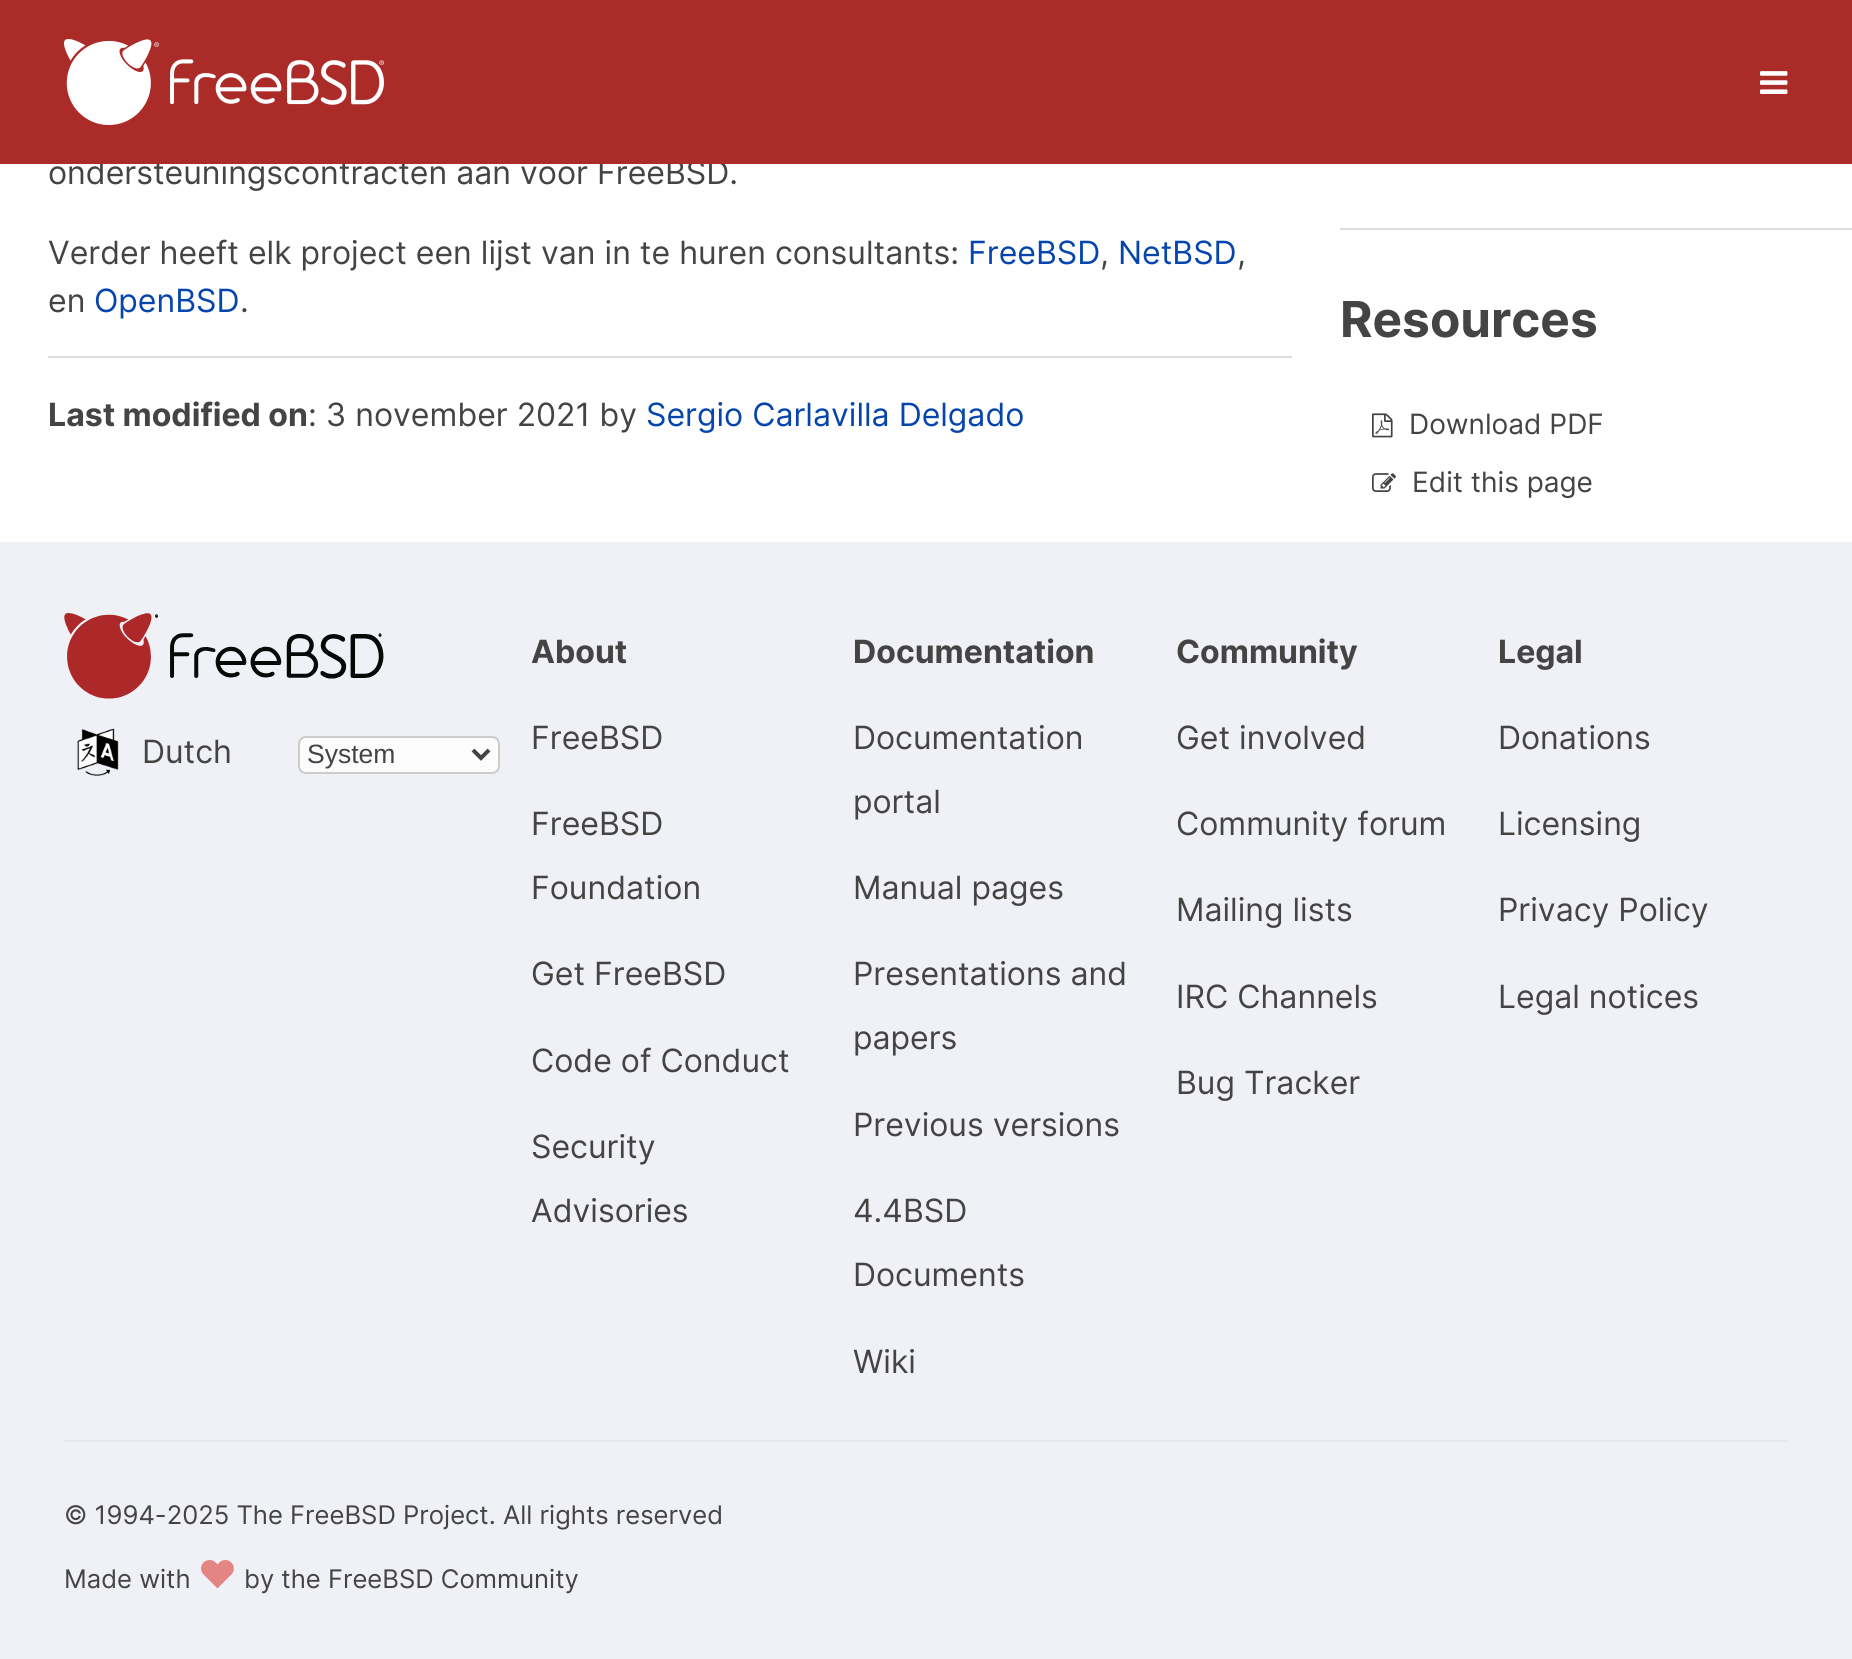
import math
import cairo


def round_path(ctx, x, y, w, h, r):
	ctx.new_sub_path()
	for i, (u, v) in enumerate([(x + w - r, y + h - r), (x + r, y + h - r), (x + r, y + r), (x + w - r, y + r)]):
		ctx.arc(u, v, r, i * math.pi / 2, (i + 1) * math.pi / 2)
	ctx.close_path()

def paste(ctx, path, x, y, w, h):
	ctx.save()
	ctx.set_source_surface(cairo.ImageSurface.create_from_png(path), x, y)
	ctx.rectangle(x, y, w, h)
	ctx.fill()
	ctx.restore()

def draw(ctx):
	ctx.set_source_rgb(1, 1, 1)
	ctx.paint()
	ctx.select_font_face('Inter')
	ctx.set_font_size(32)
	ctx.set_source_rgb(0.267, 0.267, 0.267)
	ctx.move_to(48, 184)
	ctx.show_text('ondersteuningscontracten aan voor FreeBSD.')
	ctx.set_source_rgb(0.671, 0.169, 0.157)
	ctx.rectangle(0, 0, 1852, 164)
	ctx.fill()
	paste(ctx, 'media/1.png', 64, 39, 320, 86)
	paste(ctx, 'media/2.png', 1760, 71, 28, 23)
	ctx.set_source_rgb(0.267, 0.267, 0.267)
	ctx.move_to(48, 264)
	ctx.show_text('Verder heeft elk project een lijst van in te huren consultants:')
	ctx.set_source_rgb(0.024, 0.271, 0.678)
	ctx.move_to(968, 264)
	ctx.show_text('FreeBSD')
	ctx.set_source_rgb(0.267, 0.267, 0.267)
	ctx.move_to(1100, 264)
	ctx.show_text(',')
	ctx.set_source_rgb(0.024, 0.271, 0.678)
	ctx.move_to(1118, 264)
	ctx.show_text('NetBSD')
	ctx.set_source_rgb(0.267, 0.267, 0.267)
	ctx.move_to(1237, 264)
	ctx.show_text(',')
	ctx.move_to(48, 312)
	ctx.show_text('en')
	ctx.set_source_rgb(0.024, 0.271, 0.678)
	ctx.move_to(94, 312)
	ctx.show_text('OpenBSD')
	ctx.set_source_rgb(0.267, 0.267, 0.267)
	ctx.move_to(240, 312)
	ctx.show_text('.')
	ctx.set_source_rgb(0.867, 0.867, 0.867)
	ctx.rectangle(48, 356, 1244, 2)
	ctx.fill()
	ctx.select_font_face('Inter', cairo.FONT_SLANT_NORMAL, cairo.FONT_WEIGHT_BOLD)
	ctx.set_source_rgb(0.267, 0.267, 0.267)
	ctx.move_to(48, 426)
	ctx.show_text('Last modified on')
	ctx.select_font_face('Inter')
	ctx.move_to(308, 426)
	ctx.show_text(': 3 november 2021 by')
	ctx.set_source_rgb(0.024, 0.271, 0.678)
	ctx.move_to(646, 426)
	ctx.show_text('Sergio Carlavilla Delgado')
	ctx.set_source_rgb(0.867, 0.867, 0.867)
	ctx.rectangle(1340, 228, 512, 2)
	ctx.fill()
	ctx.select_font_face('Inter', cairo.FONT_SLANT_NORMAL, cairo.FONT_WEIGHT_BOLD)
	ctx.set_font_size(49.5)
	ctx.set_source_rgb(0.267, 0.267, 0.267)
	ctx.move_to(1340, 337)
	ctx.show_text('Resources')
	paste(ctx, 'media/3.png', 1372, 413, 21, 25)
	ctx.select_font_face('Inter')
	ctx.set_font_size(28)
	ctx.move_to(1409, 434)
	ctx.show_text('Download PDF')
	paste(ctx, 'media/4.png', 1372, 473, 24, 19)
	ctx.move_to(1412, 492)
	ctx.show_text('Edit this page')
	ctx.set_source_rgb(0.941, 0.945, 0.961)
	ctx.rectangle(0, 542, 1852, 1117)
	ctx.fill()
	paste(ctx, 'media/5.png', 64, 613, 320, 86)
	paste(ctx, 'media/6.png', 77, 728, 42, 48)
	ctx.set_font_size(32)
	ctx.set_source_rgb(0.267, 0.267, 0.267)
	ctx.move_to(142, 763)
	ctx.show_text('Dutch')
	ctx.set_source_rgb(0.988, 0.988, 0.992)
	round_path(ctx, 299, 737, 200, 36, 7)
	ctx.fill_preserve()
	ctx.set_source_rgb(0.8, 0.8, 0.8)
	ctx.stroke()
	ctx.new_path()
	ctx.move_to(473, 750)
	ctx.line_to(481, 758)
	ctx.line_to(489, 750)
	ctx.set_source_rgb(0.267, 0.267, 0.267)
	ctx.set_line_width(4)
	ctx.stroke()
	ctx.select_font_face('Liberation Sans')
	ctx.set_font_size(26.5)
	ctx.move_to(307, 763)
	ctx.show_text('System')
	ctx.select_font_face('Inter', cairo.FONT_SLANT_NORMAL, cairo.FONT_WEIGHT_BOLD)
	ctx.set_font_size(32)
	ctx.move_to(531, 663)
	ctx.show_text('About')
	ctx.select_font_face('Inter')
	for x, y, s in [
		(531, 749, 'FreeBSD'),
		(531, 835, 'FreeBSD'),
		(531, 899, 'Foundation'),
		(531, 985, 'Get FreeBSD'),
		(531, 1072, 'Code of Conduct'),
		(531, 1158, 'Security'),
		(531, 1222, 'Advisories'),
	]:
		ctx.move_to(x, y)
		ctx.show_text(s)
	ctx.select_font_face('Inter', cairo.FONT_SLANT_NORMAL, cairo.FONT_WEIGHT_BOLD)
	ctx.move_to(853, 663)
	ctx.show_text('Documentation')
	ctx.select_font_face('Inter')
	for x, y, s in [
		(853, 749, 'Documentation'),
		(853, 813, 'portal'),
		(853, 899, 'Manual pages'),
		(853, 985, 'Presentations and'),
		(853, 1049, 'papers'),
		(853, 1136, 'Previous versions'),
		(853, 1222, '4.4BSD'),
		(853, 1286, 'Documents'),
		(853, 1373, 'Wiki'),
	]:
		ctx.move_to(x, y)
		ctx.show_text(s)
	ctx.select_font_face('Inter', cairo.FONT_SLANT_NORMAL, cairo.FONT_WEIGHT_BOLD)
	ctx.move_to(1176, 663)
	ctx.show_text('Community')
	ctx.select_font_face('Inter')
	for x, y, s in [
		(1176, 749, 'Get involved'),
		(1176, 835, 'Community forum'),
		(1176, 921, 'Mailing lists'),
		(1176, 1008, 'IRC Channels'),
		(1176, 1094, 'Bug Tracker'),
	]:
		ctx.move_to(x, y)
		ctx.show_text(s)
	ctx.select_font_face('Inter', cairo.FONT_SLANT_NORMAL, cairo.FONT_WEIGHT_BOLD)
	ctx.move_to(1498, 663)
	ctx.show_text('Legal')
	ctx.select_font_face('Inter')
	for x, y, s in [
		(1498, 749, 'Donations'),
		(1498, 835, 'Licensing'),
		(1498, 921, 'Privacy Policy'),
		(1498, 1008, 'Legal notices'),
	]:
		ctx.move_to(x, y)
		ctx.show_text(s)
	ctx.set_source_rgb(0.898, 0.906, 0.922)
	ctx.rectangle(64, 1440, 1724, 2)
	ctx.fill()
	ctx.set_font_size(25.6)
	ctx.set_source_rgb(0.267, 0.267, 0.267)
	ctx.move_to(64, 1524)
	ctx.show_text('© 1994-2025 The FreeBSD Project. All rights reserved')
	ctx.move_to(64, 1588)
	ctx.show_text('Made with')
	ctx.set_font_size(38)
	ctx.set_source_rgb(0.89, 0.522, 0.51)
	ctx.move_to(198, 1588)
	ctx.show_text('♥')
	ctx.set_font_size(25.6)
	ctx.set_source_rgb(0.267, 0.267, 0.267)
	ctx.move_to(244, 1588)
	ctx.show_text('by the FreeBSD Community')


surface = cairo.ImageSurface(cairo.FORMAT_RGB24, 1852, 1659)
ctx = cairo.Context(surface)
options = cairo.FontOptions()
options.set_hint_metrics(cairo.HINT_METRICS_OFF)
options.set_hint_style(cairo.HINT_STYLE_NONE)
ctx.set_font_options(options)
ctx.set_miter_limit(4)
draw(ctx)
surface.write_to_png('image.png')
